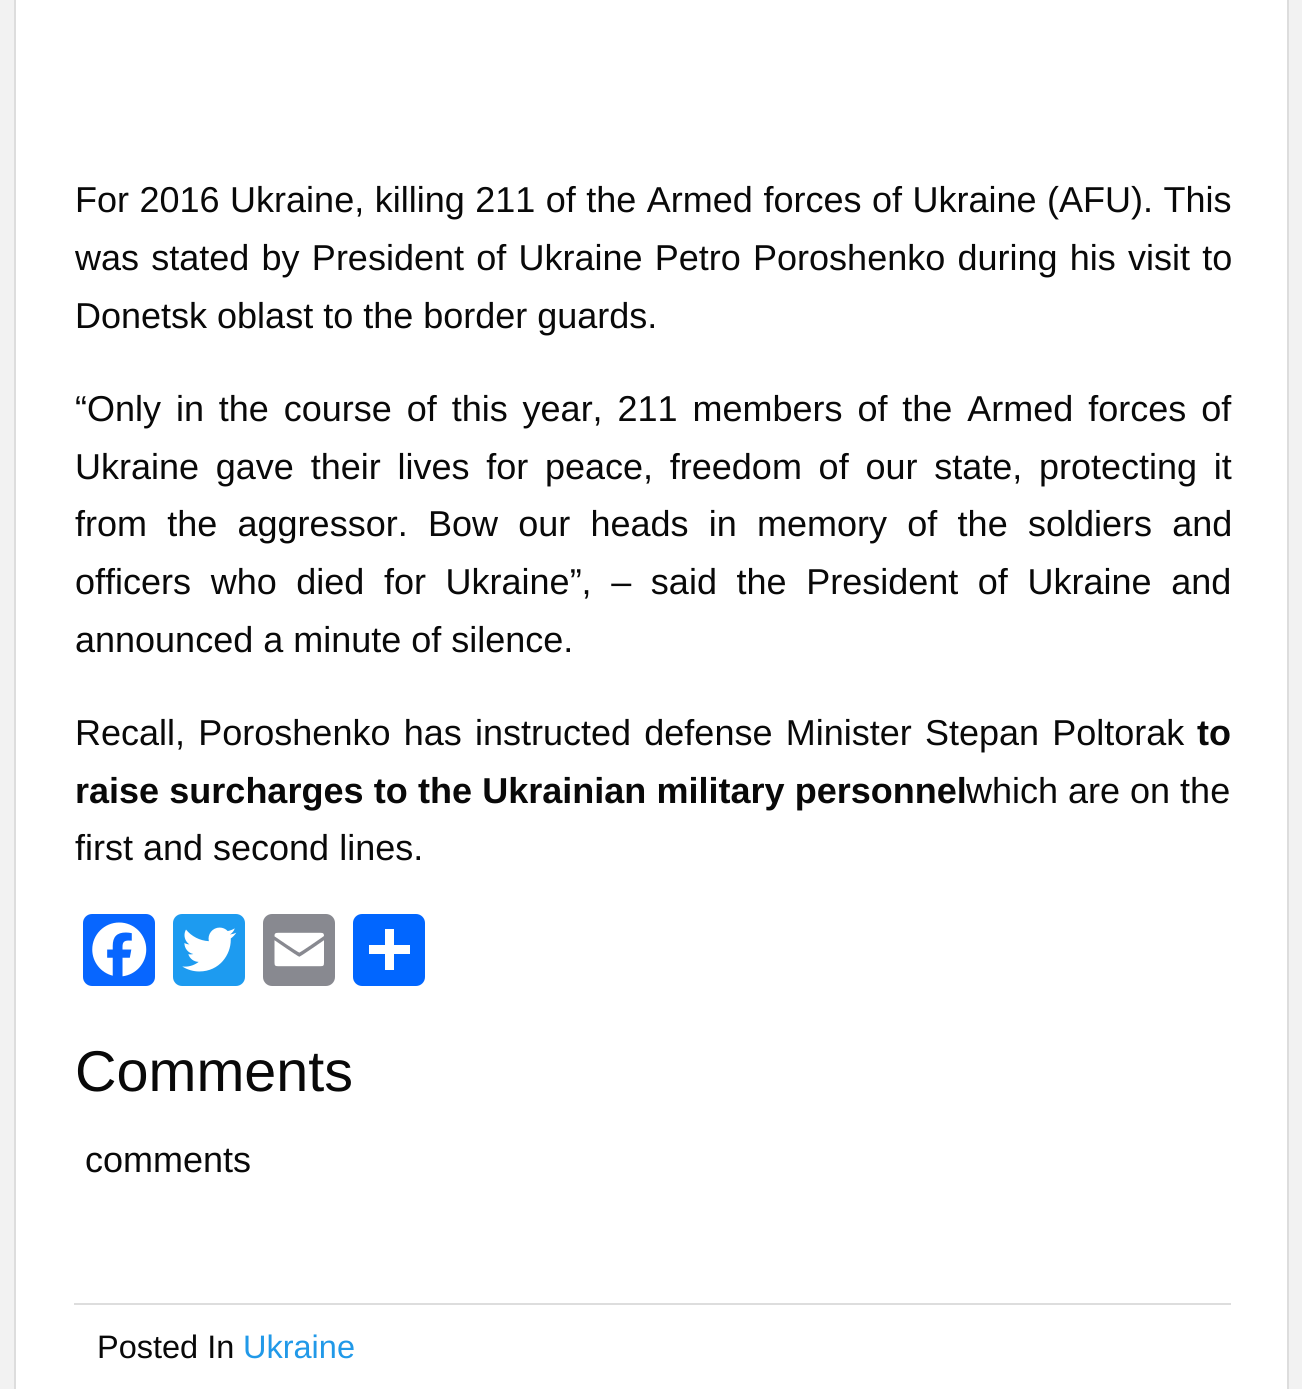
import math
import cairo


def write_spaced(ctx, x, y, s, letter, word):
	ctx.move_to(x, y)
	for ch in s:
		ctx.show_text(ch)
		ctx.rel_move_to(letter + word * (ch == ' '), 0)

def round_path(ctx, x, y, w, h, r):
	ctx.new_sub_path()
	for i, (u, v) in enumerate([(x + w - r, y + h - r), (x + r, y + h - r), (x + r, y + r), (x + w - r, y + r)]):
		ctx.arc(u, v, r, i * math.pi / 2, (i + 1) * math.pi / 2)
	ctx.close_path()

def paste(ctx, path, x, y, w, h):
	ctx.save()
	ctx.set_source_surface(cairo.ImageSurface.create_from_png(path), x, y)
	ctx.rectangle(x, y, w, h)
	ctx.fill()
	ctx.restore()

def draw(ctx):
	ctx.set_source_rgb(0.949, 0.949, 0.949)
	ctx.paint()
	ctx.set_source_rgb(1, 1, 1)
	ctx.rectangle(15, -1, 1273, 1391)
	ctx.fill_preserve()
	ctx.set_source_rgb(0.867, 0.867, 0.867)
	ctx.stroke()
	ctx.select_font_face('Liberation Sans')
	ctx.set_font_size(36)
	ctx.set_source_rgb(0.039, 0.039, 0.039)
	write_spaced(ctx, 75, 212, 'For 2016 Ukraine, killing 211 of the Armed forces of Ukraine (AFU). This', 0, 0.5)
	write_spaced(ctx, 75, 270, 'was stated by President of Ukraine Petro Poroshenko during his visit to', 0, 2.25)
	ctx.move_to(75, 328)
	ctx.show_text('Donetsk oblast to the border guards.')
	write_spaced(ctx, 75, 421, '“Only in the course of this year, 211 members of the Armed forces of', 0, 4.9)
	write_spaced(ctx, 75, 479, 'Ukraine gave their lives for peace, freedom of our state, protecting it', 0, 6.75)
	write_spaced(ctx, 75, 536, 'from the aggressor. Bow our heads in memory of the soldiers and', 0, 10.25)
	write_spaced(ctx, 75, 594, 'officers who died for Ukraine”, – said the President of Ukraine and', 0, 9.6)
	ctx.move_to(75, 652)
	ctx.show_text('announced a minute of silence.')
	write_spaced(ctx, 75, 745, 'Recall, Poroshenko has instructed defense Minister Stepan Poltorak', 0, 3.25)
	ctx.select_font_face('Liberation Sans', cairo.FONT_SLANT_NORMAL, cairo.FONT_WEIGHT_BOLD)
	ctx.move_to(1197, 745)
	ctx.show_text('to')
	write_spaced(ctx, 75, 803, 'raise surcharges to the Ukrainian military personnel', 0, 0.25)
	ctx.select_font_face('Liberation Sans')
	ctx.move_to(966, 803)
	ctx.show_text('which are on the')
	ctx.move_to(75, 860)
	ctx.show_text('first and second lines.')
	ctx.set_source_rgb(0.031, 0.4, 1)
	round_path(ctx, 83, 914, 72, 72, 9)
	ctx.fill()
	paste(ctx, 'media/1.png', 92, 922, 55, 55)
	ctx.set_source_rgb(0.114, 0.608, 0.941)
	round_path(ctx, 173, 914, 72, 72, 9)
	ctx.fill()
	paste(ctx, 'media/2.png', 182, 927, 55, 45)
	ctx.set_source_rgb(0.533, 0.537, 0.565)
	round_path(ctx, 263, 914, 72, 72, 9)
	ctx.fill()
	paste(ctx, 'media/3.png', 274, 932, 50, 35)
	ctx.set_source_rgb(0.004, 0.4, 1)
	round_path(ctx, 353, 914, 72, 72, 9)
	ctx.fill()
	ctx.set_source_rgb(1, 1, 1)
	ctx.rectangle(385, 929, 9, 41)
	ctx.fill()
	ctx.rectangle(369, 945, 41, 9)
	ctx.fill()
	ctx.set_font_size(57.5)
	ctx.set_source_rgb(0.039, 0.039, 0.039)
	ctx.move_to(75, 1091)
	ctx.show_text('Comments')
	ctx.set_font_size(36)
	ctx.move_to(85, 1172)
	ctx.show_text('comments')
	ctx.set_source_rgb(0.867, 0.867, 0.867)
	ctx.rectangle(74, 1303, 1157, 2)
	ctx.fill()
	ctx.set_font_size(32.5)
	ctx.set_source_rgb(0.039, 0.039, 0.039)
	ctx.move_to(97, 1358)
	ctx.show_text('Posted In')
	ctx.set_source_rgb(0.129, 0.6, 0.91)
	ctx.move_to(243, 1358)
	ctx.show_text('Ukraine')


surface = cairo.ImageSurface(cairo.FORMAT_RGB24, 1302, 1389)
ctx = cairo.Context(surface)
options = cairo.FontOptions()
options.set_hint_metrics(cairo.HINT_METRICS_OFF)
options.set_hint_style(cairo.HINT_STYLE_NONE)
ctx.set_font_options(options)
ctx.set_miter_limit(4)
draw(ctx)
surface.write_to_png('image.png')
